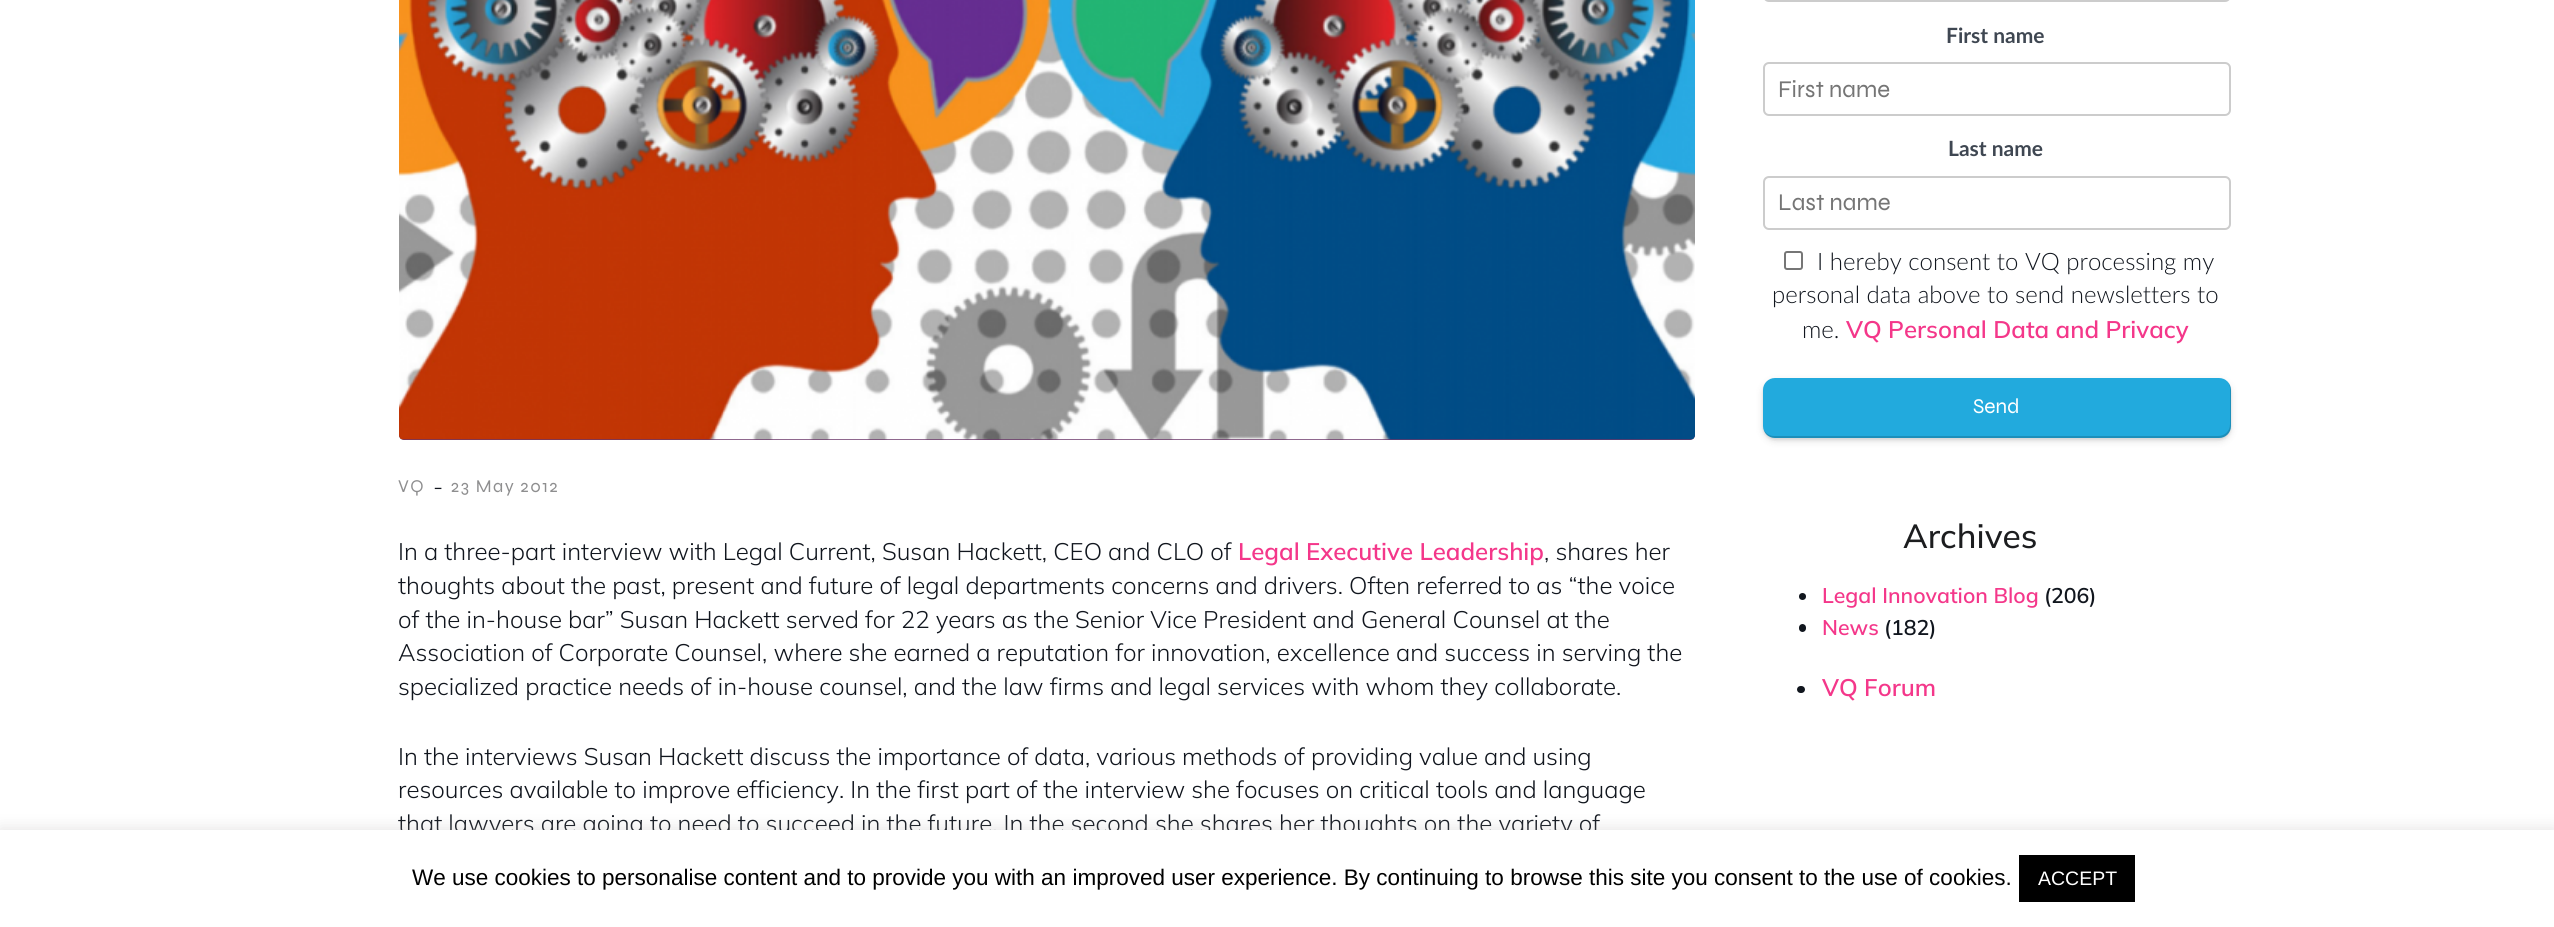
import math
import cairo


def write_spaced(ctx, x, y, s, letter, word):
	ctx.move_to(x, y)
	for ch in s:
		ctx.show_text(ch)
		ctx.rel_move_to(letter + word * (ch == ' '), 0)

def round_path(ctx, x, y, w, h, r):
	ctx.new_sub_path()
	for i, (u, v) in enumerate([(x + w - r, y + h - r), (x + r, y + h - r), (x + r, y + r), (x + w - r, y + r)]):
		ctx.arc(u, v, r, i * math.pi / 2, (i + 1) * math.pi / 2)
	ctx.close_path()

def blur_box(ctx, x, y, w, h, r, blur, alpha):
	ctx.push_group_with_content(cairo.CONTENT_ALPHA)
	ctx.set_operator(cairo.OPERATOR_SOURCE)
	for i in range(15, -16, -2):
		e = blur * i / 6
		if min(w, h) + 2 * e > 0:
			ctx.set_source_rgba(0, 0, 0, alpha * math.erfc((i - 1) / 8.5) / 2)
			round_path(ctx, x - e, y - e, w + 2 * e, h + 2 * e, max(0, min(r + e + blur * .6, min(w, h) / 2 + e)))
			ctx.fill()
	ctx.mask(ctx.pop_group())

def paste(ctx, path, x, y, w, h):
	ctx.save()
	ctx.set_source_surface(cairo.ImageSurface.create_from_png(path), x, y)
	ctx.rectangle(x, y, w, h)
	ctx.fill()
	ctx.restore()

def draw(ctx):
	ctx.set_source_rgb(1, 1, 1)
	ctx.paint()
	ctx.set_source_rgb(0.412, 0.212, 0.408)
	round_path(ctx, 399, -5, 1296, 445, 5)
	ctx.fill()
	paste(ctx, 'media/1.png', 399, 0, 1296, 440)
	ctx.select_font_face('Syne')
	ctx.set_font_size(18)
	ctx.set_source_rgb(0.557, 0.557, 0.561)
	write_spaced(ctx, 398, 492, 'VQ', 1.5, 0)
	ctx.select_font_face('Mulish Light')
	ctx.set_font_size(24)
	ctx.set_source_rgb(0.067, 0.086, 0.118)
	ctx.move_to(433, 495)
	ctx.show_text('-')
	ctx.select_font_face('Syne')
	ctx.set_font_size(18)
	ctx.set_source_rgb(0.557, 0.557, 0.561)
	write_spaced(ctx, 451, 492, '23 May 2012', 1.5, 0)
	ctx.select_font_face('Mulish Light')
	ctx.set_font_size(24)
	ctx.set_source_rgb(0.067, 0.086, 0.118)
	ctx.move_to(398, 560)
	ctx.show_text('In a three-part interview with Legal Current, Susan Hackett, CEO and CLO of')
	ctx.select_font_face('Mulish SemiBold')
	ctx.set_source_rgb(0.957, 0.216, 0.541)
	ctx.move_to(1238, 560)
	ctx.show_text('Legal Executive Leadership')
	ctx.select_font_face('Mulish Light')
	ctx.set_source_rgb(0.067, 0.086, 0.118)
	for x, y, s in [
		(1544, 560, ', shares her'),
		(398, 594, 'thoughts about the past, present and future of legal departments concerns and drivers. Often referred to as “the voice'),
		(398, 628, 'of the in-house bar” Susan Hackett served for 22 years as the Senior Vice President and General Counsel at the'),
		(398, 661, 'Association of Corporate Counsel, where she earned a reputation for innovation, excellence and success in serving the'),
		(398, 695, 'specialized practice needs of in-house counsel, and the law firms and legal services with whom they collaborate.'),
		(398, 765, 'In the interviews Susan Hackett discuss the importance of data, various methods of providing value and using'),
		(398, 798, 'resources available to improve efficiency. In the first part of the interview she focuses on critical tools and language'),
		(398, 832, 'that lawyers are going to need to succeed in the future. In the second she shares her thoughts on the variety of'),
	]:
		ctx.move_to(x, y)
		ctx.show_text(s)
	round_path(ctx, 1764, -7, 466, 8, 5)
	ctx.set_source_rgb(0.8, 0.8, 0.8)
	ctx.stroke()
	ctx.select_font_face('Lato', cairo.FONT_SLANT_NORMAL, cairo.FONT_WEIGHT_BOLD)
	ctx.set_font_size(21)
	ctx.set_source_rgb(0.247, 0.278, 0.322)
	ctx.move_to(1946, 43)
	ctx.show_text('First name')
	round_path(ctx, 1764, 63, 466, 52, 5)
	ctx.set_source_rgb(0.8, 0.8, 0.8)
	ctx.stroke()
	ctx.select_font_face('Syne')
	ctx.set_font_size(24)
	ctx.set_source_rgb(0.459, 0.459, 0.459)
	ctx.move_to(1778, 97)
	ctx.show_text('First name')
	ctx.select_font_face('Lato', cairo.FONT_SLANT_NORMAL, cairo.FONT_WEIGHT_BOLD)
	ctx.set_font_size(21)
	ctx.set_source_rgb(0.247, 0.278, 0.322)
	ctx.move_to(1948, 156)
	ctx.show_text('Last name')
	round_path(ctx, 1764, 177, 466, 52, 5)
	ctx.set_source_rgb(0.8, 0.8, 0.8)
	ctx.stroke()
	ctx.select_font_face('Syne')
	ctx.set_font_size(24)
	ctx.set_source_rgb(0.459, 0.459, 0.459)
	ctx.move_to(1778, 210)
	ctx.show_text('Last name')
	round_path(ctx, 1785, 252, 17, 17, 2)
	ctx.set_source_rgb(0.463, 0.463, 0.463)
	ctx.stroke()
	ctx.select_font_face('Lato Light')
	ctx.set_source_rgb(0.067, 0.086, 0.118)
	for x, y, s in [
		(1817, 270, 'I hereby consent to VQ processing my'),
		(1772, 303, 'personal data above to send newsletters to'),
		(1802, 338, 'me.'),
	]:
		ctx.move_to(x, y)
		ctx.show_text(s)
	ctx.select_font_face('Mulish SemiBold')
	ctx.set_source_rgb(0.957, 0.216, 0.541)
	ctx.move_to(1846, 338)
	ctx.show_text('VQ Personal Data and Privacy')
	ctx.set_source_rgb(0, 0, 0)
	blur_box(ctx, 1763, 381, 468, 60, 12, 4, 0.12)
	blur_box(ctx, 1763, 380, 468, 60, 12, 1, 0.08)
	ctx.set_source_rgb(0.133, 0.667, 0.867)
	round_path(ctx, 1763, 378, 468, 60, 12)
	ctx.fill()
	ctx.set_source_rgba(0, 0, 0, 0.16)
	ctx.new_path()
	ctx.move_to(1764, 430)
	ctx.curve_to(1765, 435, 1770, 438, 1775, 438)
	ctx.line_to(2219, 438)
	ctx.curve_to(2226, 438, 2231, 433, 2231, 426)
	ctx.line_to(2231, 390)
	ctx.curve_to(2231, 388, 2230, 385, 2229, 383)
	ctx.line_to(2230, 388)
	ctx.line_to(2230, 424)
	ctx.curve_to(2230, 431, 2225, 436, 2218, 436)
	ctx.line_to(1774, 436)
	ctx.curve_to(1770, 436, 1766, 434, 1764, 430)
	ctx.close_path()
	ctx.fill()
	ctx.select_font_face('Syne')
	ctx.set_font_size(21)
	ctx.set_source_rgb(1, 1, 1)
	ctx.move_to(1973, 413)
	ctx.show_text('Send')
	ctx.select_font_face('Mulish Medium')
	ctx.set_font_size(33.5)
	ctx.set_source_rgb(0.11, 0.114, 0.122)
	ctx.move_to(1903, 548)
	ctx.show_text('Archives')
	ctx.set_source_rgb(0.067, 0.086, 0.118)
	ctx.new_path()
	ctx.arc(1802.5, 596.5, 3.5, 0, 2 * math.pi)
	ctx.fill()
	ctx.select_font_face('Mulish SemiBold')
	ctx.set_font_size(21.25)
	ctx.set_source_rgb(0.957, 0.216, 0.541)
	ctx.move_to(1822, 603)
	ctx.show_text('Legal Innovation Blog')
	ctx.set_source_rgb(0.067, 0.086, 0.118)
	ctx.move_to(2044, 603)
	ctx.show_text('(206)')
	round_path(ctx, 1799, 624, 7, 8, 3.5)
	ctx.fill()
	ctx.set_source_rgb(0.957, 0.216, 0.541)
	ctx.move_to(1822, 635)
	ctx.show_text('News')
	ctx.set_source_rgb(0.067, 0.086, 0.118)
	ctx.move_to(1884, 635)
	ctx.show_text('(182)')
	round_path(ctx, 1797, 686, 8, 7, 3.5)
	ctx.fill()
	ctx.set_font_size(24)
	ctx.set_source_rgb(0.957, 0.216, 0.541)
	ctx.move_to(1822, 696)
	ctx.show_text('VQ Forum')
	ctx.set_source_rgb(0.675, 0.671, 0.671)
	blur_box(ctx, 0, 828, 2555, 98, 0, 7.5, 0.3)
	ctx.set_source_rgb(1, 1, 1)
	ctx.rectangle(0, 830, 2554, 97)
	ctx.fill()
	ctx.select_font_face('Liberation Sans')
	ctx.set_font_size(22.5)
	ctx.set_source_rgb(0, 0, 0)
	ctx.move_to(412, 885)
	ctx.show_text('We use cookies to personalise content and to provide you with an improved user experience. By continuing to browse this site you consent to the use of cookies.')
	ctx.rectangle(2019, 855, 116, 47)
	ctx.fill()
	ctx.set_font_size(19.5)
	ctx.set_source_rgb(1, 1, 1)
	ctx.move_to(2038, 885)
	ctx.show_text('ACCEPT')


surface = cairo.ImageSurface(cairo.FORMAT_RGB24, 2554, 927)
ctx = cairo.Context(surface)
options = cairo.FontOptions()
options.set_hint_metrics(cairo.HINT_METRICS_OFF)
options.set_hint_style(cairo.HINT_STYLE_NONE)
ctx.set_font_options(options)
ctx.set_miter_limit(4)
draw(ctx)
surface.write_to_png('image.png')
